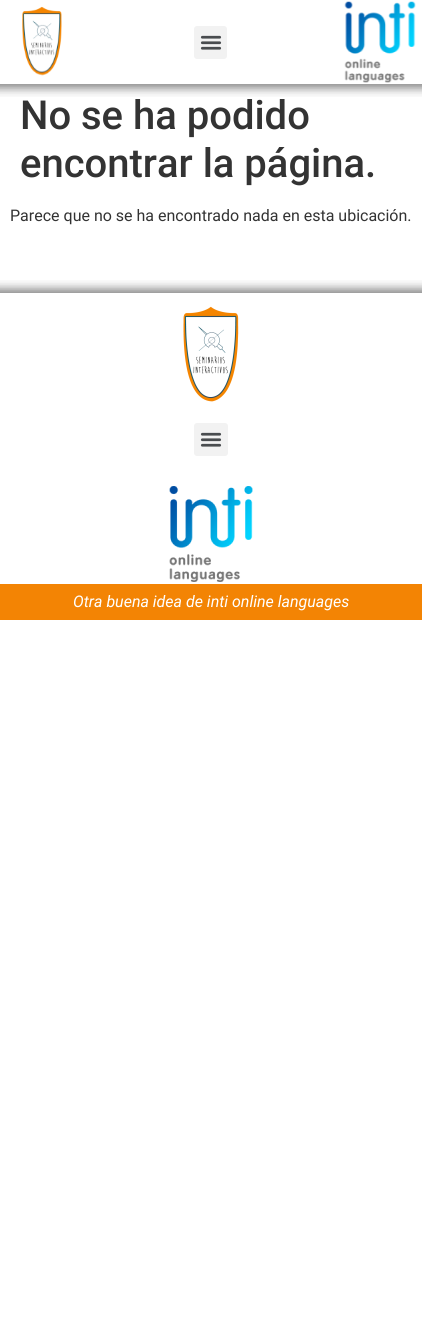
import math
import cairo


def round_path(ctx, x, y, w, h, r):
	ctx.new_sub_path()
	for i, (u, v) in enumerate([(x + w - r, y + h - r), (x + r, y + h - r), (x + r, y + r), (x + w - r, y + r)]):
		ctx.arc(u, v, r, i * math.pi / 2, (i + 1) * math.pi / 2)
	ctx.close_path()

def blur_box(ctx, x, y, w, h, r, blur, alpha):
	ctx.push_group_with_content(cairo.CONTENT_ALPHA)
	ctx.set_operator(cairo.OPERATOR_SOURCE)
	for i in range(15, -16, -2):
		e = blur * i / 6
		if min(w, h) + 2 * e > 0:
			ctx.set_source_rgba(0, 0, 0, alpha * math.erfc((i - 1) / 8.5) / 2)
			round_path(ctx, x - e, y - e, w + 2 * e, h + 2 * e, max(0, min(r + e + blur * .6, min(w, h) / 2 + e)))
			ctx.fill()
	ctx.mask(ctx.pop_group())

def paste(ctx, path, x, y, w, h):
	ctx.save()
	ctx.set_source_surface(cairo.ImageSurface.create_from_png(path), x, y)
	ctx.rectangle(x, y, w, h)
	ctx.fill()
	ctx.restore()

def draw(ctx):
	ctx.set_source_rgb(1, 1, 1)
	ctx.paint()
	ctx.save()
	ctx.rectangle(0, 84, 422, 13)
	ctx.clip()
	ctx.set_source_rgb(0, 0, 0)
	blur_box(ctx, -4, -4, 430, 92, 0, 5, 0.5)
	ctx.restore()
	paste(ctx, 'media/1.png', 22, 6, 40, 70)
	ctx.set_source_rgb(0.949, 0.949, 0.949)
	round_path(ctx, 194, 26, 33, 33, 3)
	ctx.fill()
	paste(ctx, 'media/2.png', 200, 35, 22, 15)
	paste(ctx, 'media/3.png', 344, 1, 72, 82)
	ctx.select_font_face('Roboto Medium')
	ctx.set_font_size(40)
	ctx.set_source_rgb(0.2, 0.2, 0.2)
	ctx.move_to(20, 129)
	ctx.show_text('No se ha podido')
	ctx.move_to(20, 177)
	ctx.show_text('encontrar la página.')
	ctx.select_font_face('Roboto')
	ctx.set_font_size(16)
	ctx.move_to(10, 221)
	ctx.show_text('Parece que no se ha encontrado nada en esta ubicación.')
	ctx.save()
	ctx.rectangle(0, 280, 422, 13)
	ctx.clip()
	ctx.set_source_rgb(0, 0, 0)
	blur_box(ctx, -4, 289, 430, 299, 0, 5, 0.5)
	ctx.restore()
	paste(ctx, 'media/4.png', 183, 306, 56, 96)
	ctx.set_source_rgb(0.949, 0.949, 0.949)
	round_path(ctx, 194, 423, 34, 33, 3)
	ctx.fill()
	paste(ctx, 'media/2.png', 200, 432, 22, 15)
	paste(ctx, 'media/5.png', 169, 486, 84, 96)
	ctx.set_source_rgb(0.953, 0.518, 0.016)
	ctx.rectangle(0, 584, 422, 36)
	ctx.fill()
	ctx.select_font_face('Roboto', cairo.FONT_SLANT_ITALIC)
	ctx.set_source_rgb(1, 1, 1)
	ctx.move_to(73, 607)
	ctx.show_text('Otra buena idea de inti online languages')


surface = cairo.ImageSurface(cairo.FORMAT_RGB24, 422, 1325)
ctx = cairo.Context(surface)
options = cairo.FontOptions()
options.set_hint_metrics(cairo.HINT_METRICS_OFF)
options.set_hint_style(cairo.HINT_STYLE_NONE)
ctx.set_font_options(options)
ctx.set_miter_limit(4)
draw(ctx)
surface.write_to_png('image.png')
